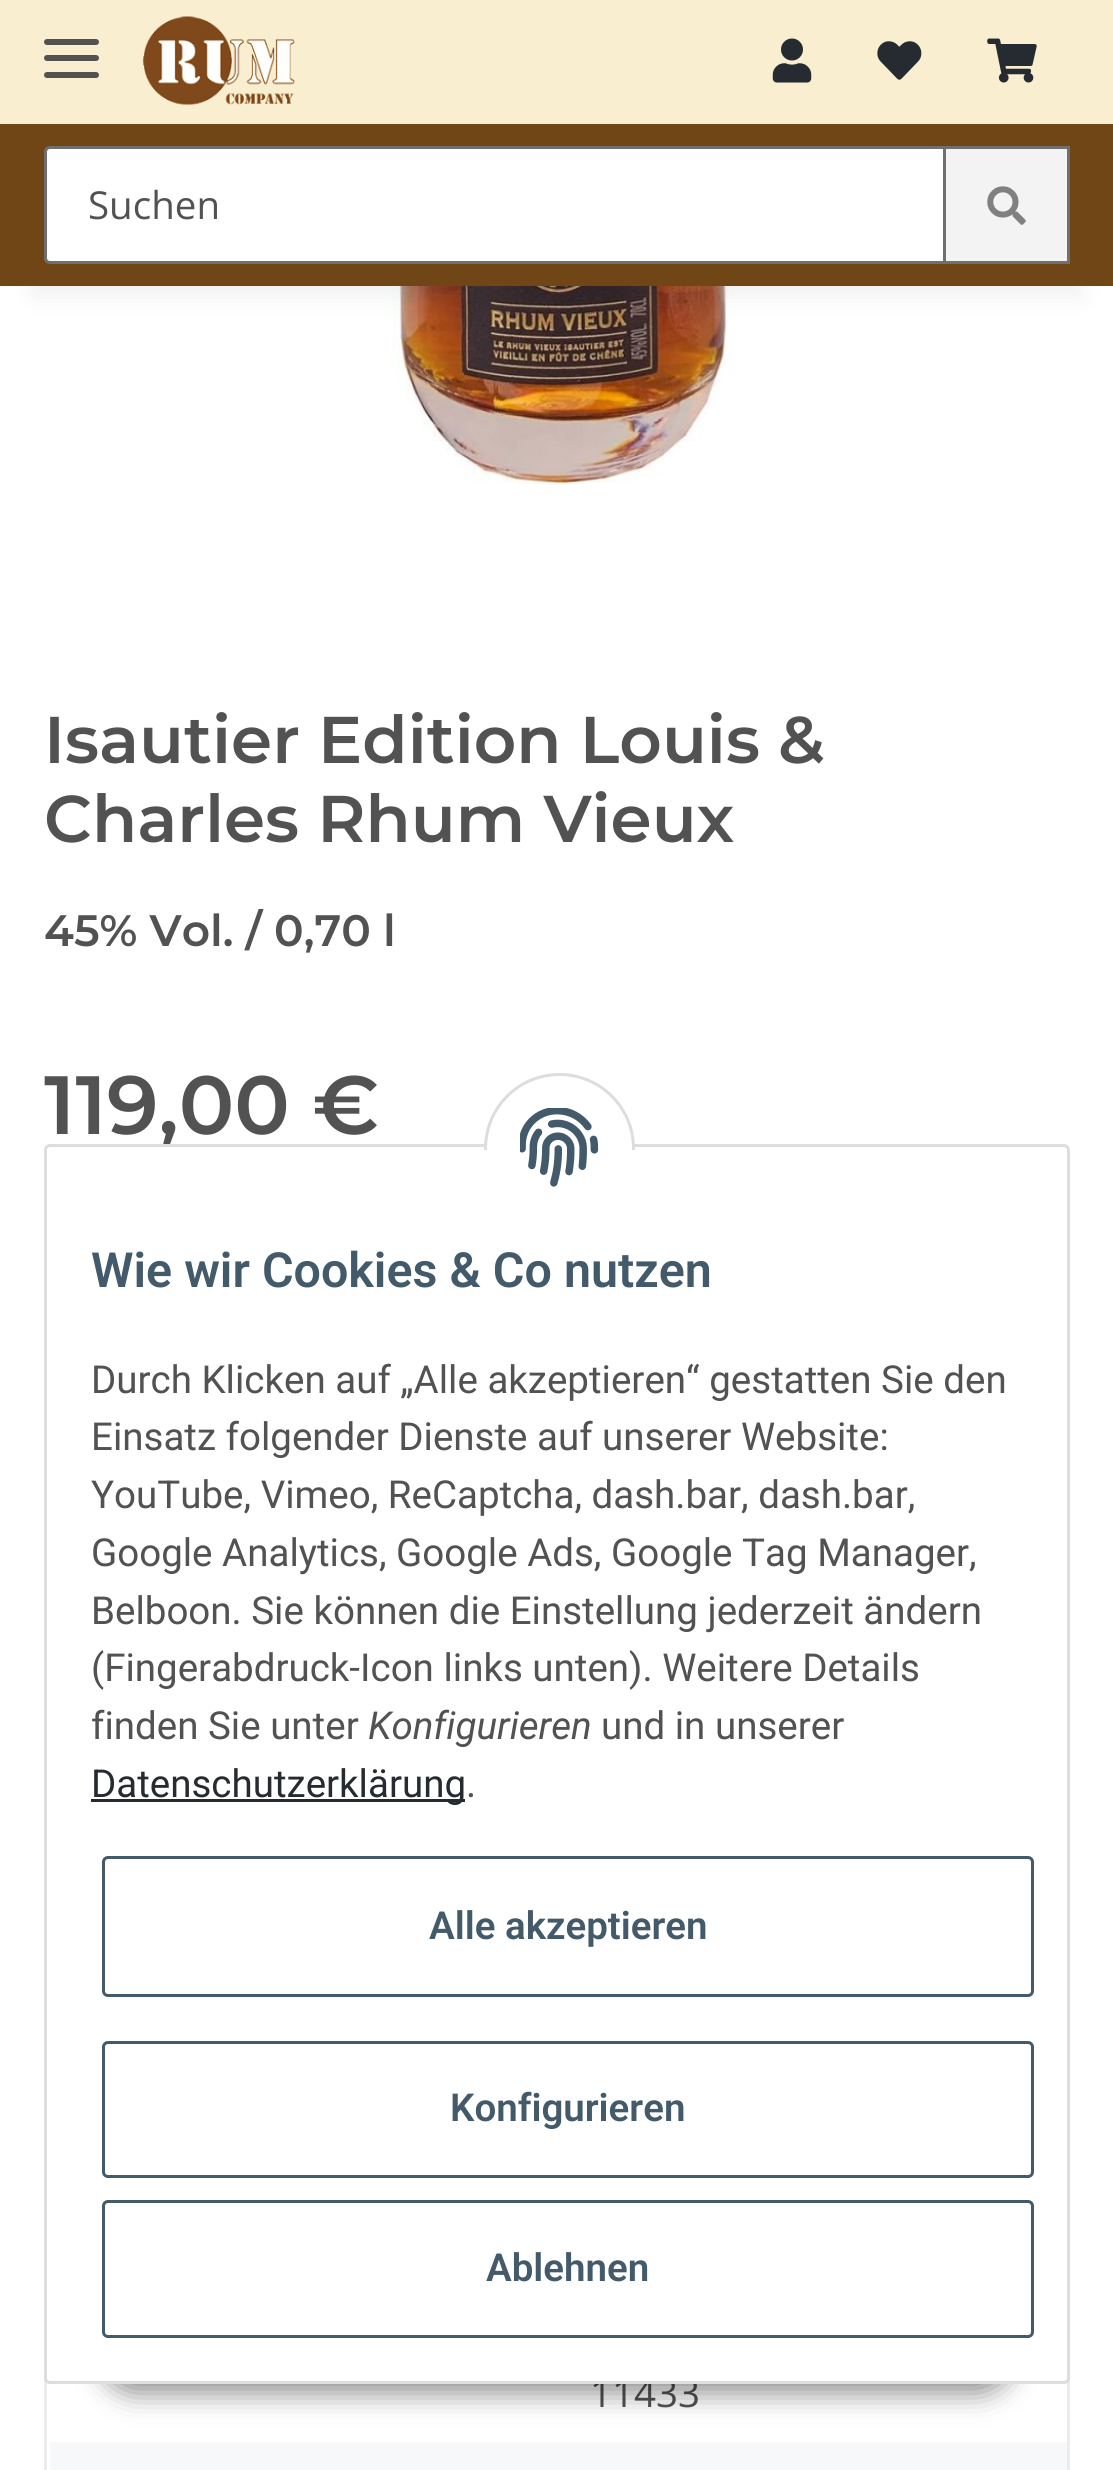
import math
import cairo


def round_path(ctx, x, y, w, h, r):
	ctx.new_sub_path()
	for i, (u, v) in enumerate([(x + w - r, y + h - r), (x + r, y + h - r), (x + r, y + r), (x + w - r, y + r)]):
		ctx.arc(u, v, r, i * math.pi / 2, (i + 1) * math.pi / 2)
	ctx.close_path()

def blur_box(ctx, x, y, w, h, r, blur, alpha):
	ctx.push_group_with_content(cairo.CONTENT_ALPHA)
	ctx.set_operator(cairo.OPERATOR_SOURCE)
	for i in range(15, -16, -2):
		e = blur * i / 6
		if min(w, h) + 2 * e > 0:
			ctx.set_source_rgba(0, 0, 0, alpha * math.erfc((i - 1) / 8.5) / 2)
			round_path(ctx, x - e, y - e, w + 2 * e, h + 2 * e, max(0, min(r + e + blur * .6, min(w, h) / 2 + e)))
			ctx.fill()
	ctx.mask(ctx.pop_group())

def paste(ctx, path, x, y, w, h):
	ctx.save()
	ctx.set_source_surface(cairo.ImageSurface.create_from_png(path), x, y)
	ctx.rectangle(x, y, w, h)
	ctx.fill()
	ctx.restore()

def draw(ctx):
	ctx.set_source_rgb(1, 1, 1)
	ctx.paint()
	paste(ctx, 'media/6.png', 391, 286, 343, 197)
	ctx.set_source_rgb(0, 0, 0)
	blur_box(ctx, 33, 77, 1048, 220, 0, 12.5, 0.06)
	ctx.set_source_rgb(0.443, 0.275, 0.09)
	ctx.rectangle(0, 124, 1113, 162)
	ctx.fill()
	ctx.set_source_rgb(0.976, 0.937, 0.816)
	ctx.rectangle(0, 0, 1113, 124)
	ctx.fill()
	ctx.set_source_rgb(0.322, 0.322, 0.322)
	round_path(ctx, 44, 55, 55, 6, 3)
	ctx.fill()
	round_path(ctx, 44, 39, 55, 6, 3)
	ctx.fill()
	round_path(ctx, 44, 72, 55, 6, 3)
	ctx.fill()
	paste(ctx, 'media/1.png', 143, 16, 152, 89)
	paste(ctx, 'media/2.png', 772, 38, 40, 45)
	paste(ctx, 'media/3.png', 877, 41, 45, 39)
	paste(ctx, 'media/4.png', 987, 38, 50, 45)
	ctx.set_source_rgb(1, 1, 1)
	ctx.new_path()
	ctx.move_to(50, 147.5)
	ctx.line_to(944.5, 147.5)
	ctx.line_to(944.5, 262.5)
	ctx.line_to(50, 262.5)
	ctx.curve_to(47.5, 262.5, 45.5, 260.5, 45.5, 258)
	ctx.line_to(45.5, 152)
	ctx.curve_to(45.5, 149.5, 47.5, 147.5, 50, 147.5)
	ctx.close_path()
	ctx.fill_preserve()
	ctx.set_source_rgb(0.439, 0.439, 0.439)
	ctx.set_line_width(3)
	ctx.stroke()
	ctx.select_font_face('Open Sans')
	ctx.set_font_size(38.5)
	ctx.set_source_rgb(0.322, 0.322, 0.322)
	ctx.move_to(88, 219)
	ctx.show_text('Suchen')
	ctx.set_source_rgb(0.953, 0.953, 0.953)
	ctx.rectangle(944.5, 147.5, 124, 115)
	ctx.fill_preserve()
	ctx.set_source_rgb(0.439, 0.439, 0.439)
	ctx.stroke()
	paste(ctx, 'media/5.png', 987, 186, 39, 39)
	ctx.select_font_face('Montserrat SemiBold')
	ctx.set_font_size(66)
	ctx.set_source_rgb(0.322, 0.322, 0.322)
	ctx.move_to(44, 763)
	ctx.show_text('Isautier Edition Louis &')
	ctx.move_to(44, 842)
	ctx.show_text('Charles Rhum Vieux')
	ctx.set_font_size(44)
	ctx.move_to(44, 946)
	ctx.show_text('45% Vol. / 0,70 l')
	ctx.set_font_size(82.5)
	ctx.move_to(44, 1134)
	ctx.show_text('119,00 €')
	ctx.set_source_rgb(0.961, 0.969, 0.98)
	ctx.rectangle(50, 2442, 1017, 28)
	ctx.fill()
	ctx.set_source_rgb(0.922, 0.922, 0.922)
	ctx.rectangle(1067, 2378, 3, 92)
	ctx.rectangle(44, 2378, 3, 92)
	ctx.fill()
	ctx.select_font_face('Open Sans')
	ctx.set_font_size(38.5)
	ctx.set_source_rgb(0.322, 0.322, 0.322)
	ctx.move_to(590, 2407)
	ctx.show_text('11433')
	ctx.set_source_rgb(0, 0, 0)
	blur_box(ctx, 99, 2305, 916, 88, 44, 14, 0.45)
	ctx.set_source_rgb(1, 1, 1)
	round_path(ctx, 45.5, 1145.5, 1023, 1237, 4.5)
	ctx.fill_preserve()
	ctx.set_source_rgb(0.867, 0.867, 0.867)
	ctx.stroke()
	ctx.set_source_rgb(1, 1, 1)
	ctx.arc(559.5, 1148.5, 74, 0, 2 * math.pi)
	ctx.fill_preserve()
	ctx.set_source_rgb(0.867, 0.867, 0.867)
	ctx.stroke()
	ctx.set_source_rgb(1, 1, 1)
	ctx.rectangle(484, 1150, 151, 74)
	ctx.fill()
	paste(ctx, 'media/7.png', 520, 1108, 79, 79)
	ctx.select_font_face('Roboto SemiBold')
	ctx.set_font_size(48.4)
	ctx.set_source_rgb(0.263, 0.353, 0.42)
	ctx.move_to(91, 1287)
	ctx.show_text('Wie wir Cookies & Co nutzen')
	ctx.select_font_face('Roboto')
	ctx.set_font_size(38.5)
	ctx.set_source_rgb(0.322, 0.322, 0.322)
	for x, y, s in [
		(91, 1393, 'Durch Klicken auf „Alle akzeptieren“ gestatten Sie den'),
		(91, 1450, 'Einsatz folgender Dienste auf unserer Website:'),
		(91, 1508, 'YouTube, Vimeo, ReCaptcha, dash.bar, dash.bar,'),
		(91, 1566, 'Google Analytics, Google Ads, Google Tag Manager,'),
		(91, 1624, 'Belboon. Sie können die Einstellung jederzeit ändern'),
		(91, 1681, '(Fingerabdruck-Icon links unten). Weitere Details'),
		(91, 1739, 'finden Sie unter'),
	]:
		ctx.move_to(x, y)
		ctx.show_text(s)
	ctx.select_font_face('Roboto', cairo.FONT_SLANT_ITALIC)
	ctx.move_to(368, 1739)
	ctx.show_text('Konfigurieren')
	ctx.select_font_face('Roboto')
	ctx.move_to(601, 1739)
	ctx.show_text('und in unserer')
	ctx.set_source_rgb(0.149, 0.169, 0.192)
	ctx.rectangle(91, 1799, 374, 3)
	ctx.fill()
	ctx.move_to(91, 1797)
	ctx.show_text('Datenschutzerklärung')
	ctx.set_source_rgb(0.322, 0.322, 0.322)
	ctx.move_to(466, 1797)
	ctx.show_text('.')
	round_path(ctx, 103.5, 1857.5, 929, 138, 4.5)
	ctx.set_source_rgb(0.263, 0.353, 0.42)
	ctx.stroke()
	ctx.select_font_face('Roboto SemiBold')
	ctx.move_to(429, 1939)
	ctx.show_text('Alle akzeptieren')
	round_path(ctx, 103.5, 2042.5, 929, 134, 4.5)
	ctx.stroke()
	ctx.move_to(450, 2121)
	ctx.show_text('Konfigurieren')
	round_path(ctx, 103.5, 2201.5, 929, 135, 4.5)
	ctx.stroke()
	ctx.move_to(486, 2281)
	ctx.show_text('Ablehnen')


surface = cairo.ImageSurface(cairo.FORMAT_RGB24, 1113, 2470)
ctx = cairo.Context(surface)
options = cairo.FontOptions()
options.set_hint_metrics(cairo.HINT_METRICS_OFF)
options.set_hint_style(cairo.HINT_STYLE_NONE)
ctx.set_font_options(options)
ctx.set_miter_limit(4)
draw(ctx)
surface.write_to_png('image.png')
